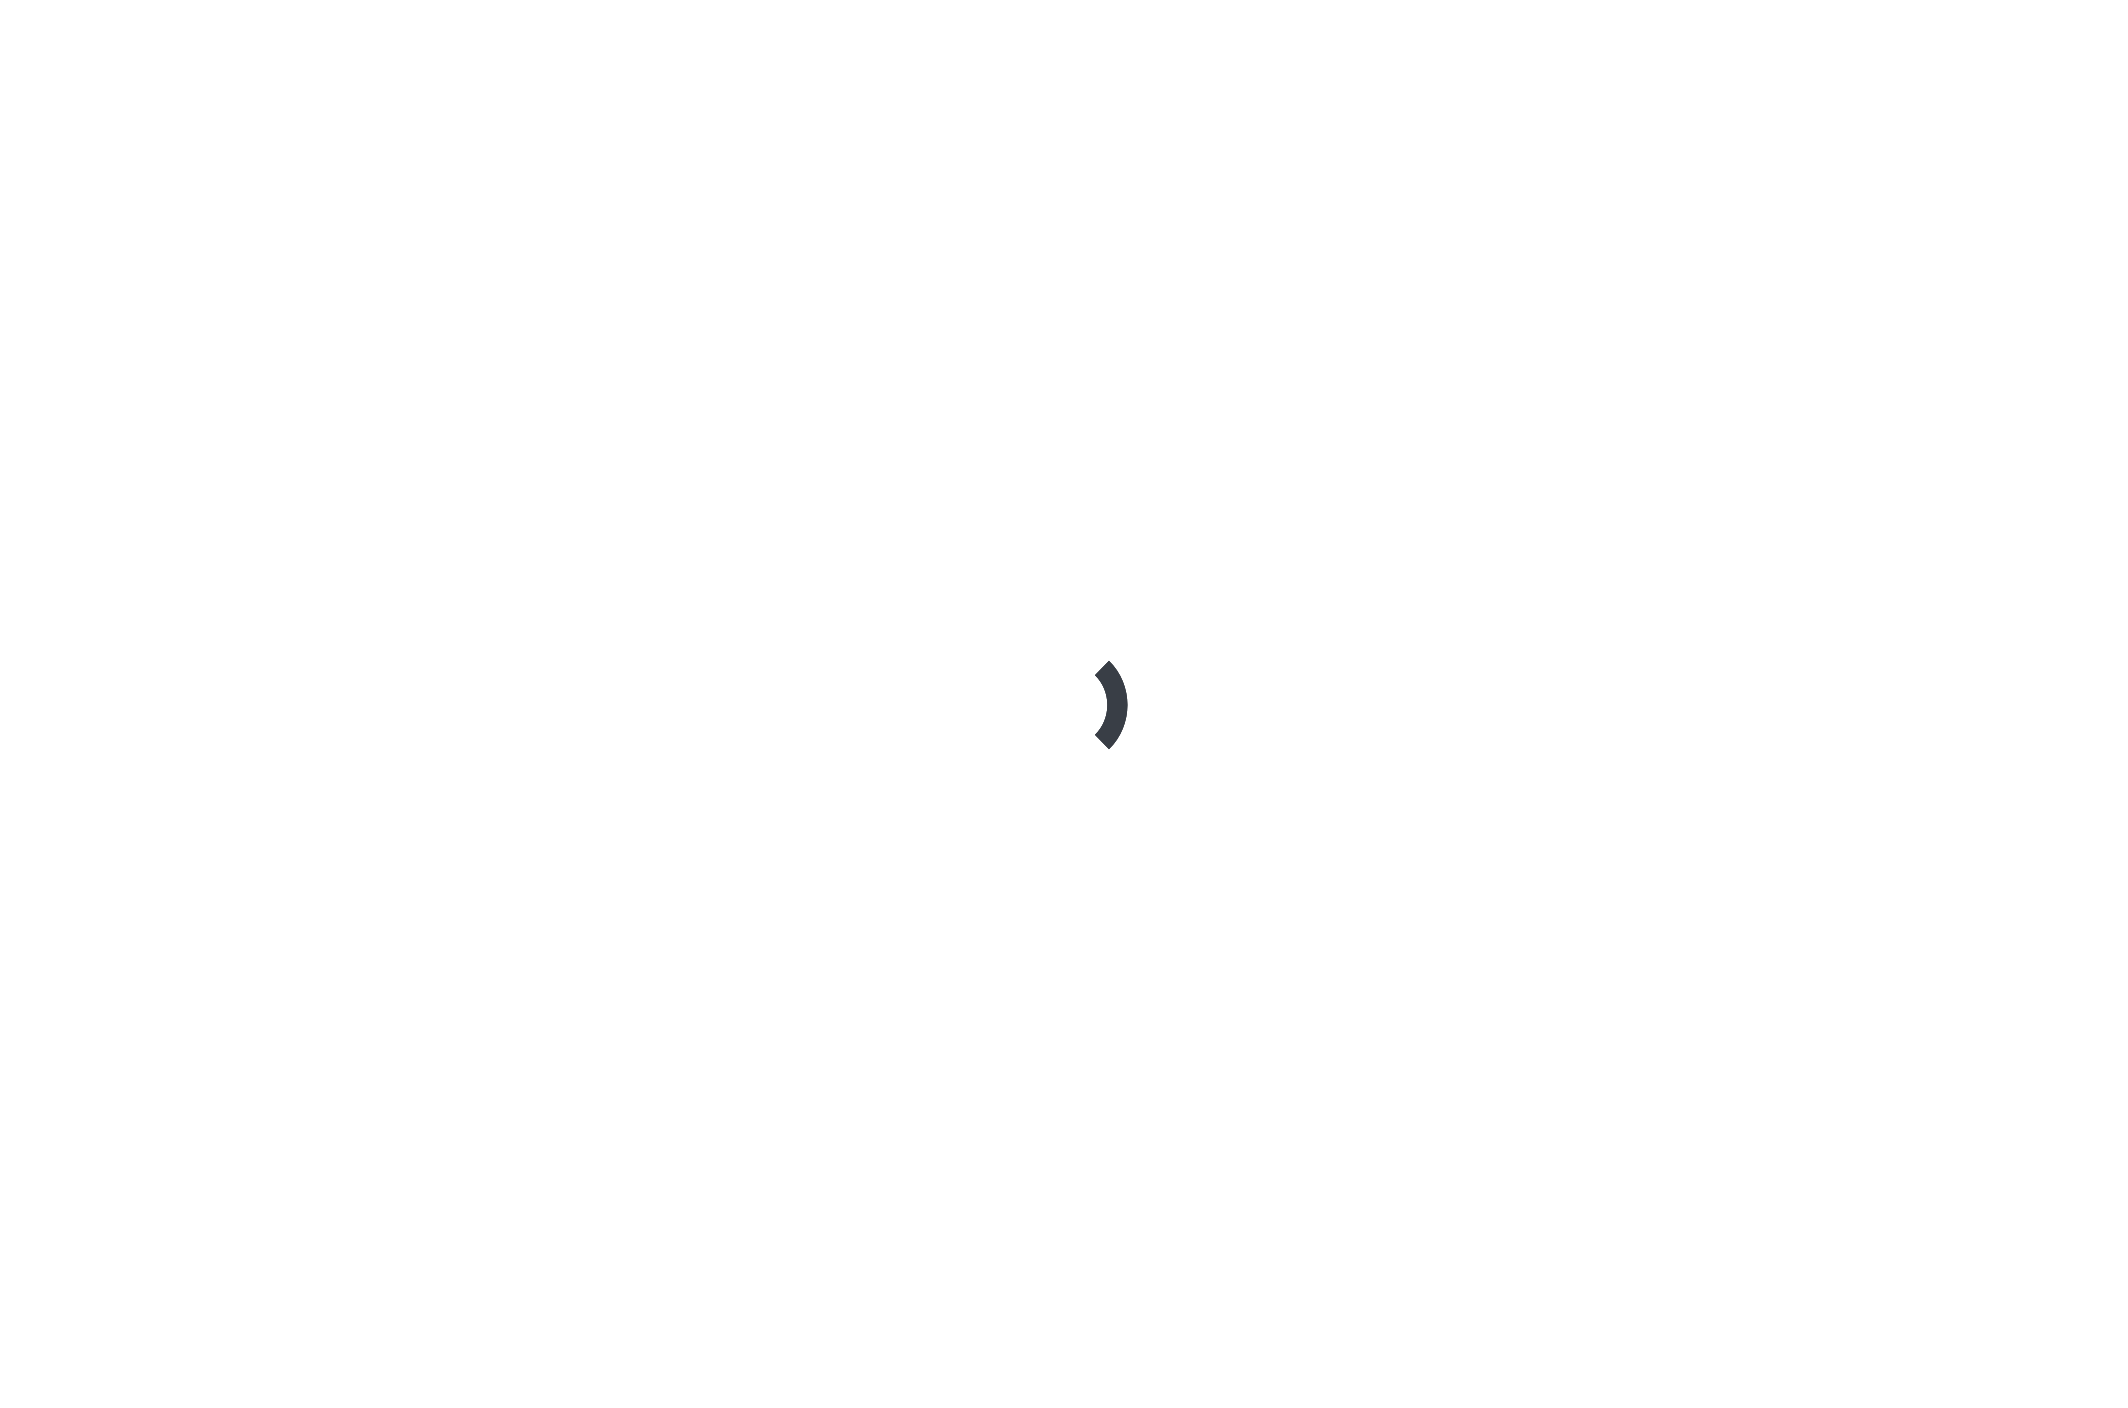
import math
import cairo


def draw(ctx):
	ctx.set_source_rgb(1, 1, 1)
	ctx.paint()
	ctx.new_path()
	ctx.move_to(1102, 668)
	ctx.curve_to(1122.5, 688, 1122.5, 722, 1102, 742)
	ctx.set_source_rgb(0.224, 0.243, 0.275)
	ctx.set_line_width(20)
	ctx.stroke()
	ctx.new_path()
	ctx.move_to(1102, 668)
	ctx.curve_to(1122.5, 688, 1122.5, 722, 1102, 742)
	ctx.stroke()
	ctx.new_path()
	ctx.move_to(1102, 668)
	ctx.curve_to(1122.5, 688, 1122.5, 722, 1102, 742)
	ctx.stroke()


surface = cairo.ImageSurface(cairo.FORMAT_RGB24, 2128, 1408)
ctx = cairo.Context(surface)
options = cairo.FontOptions()
options.set_hint_metrics(cairo.HINT_METRICS_OFF)
options.set_hint_style(cairo.HINT_STYLE_NONE)
ctx.set_font_options(options)
ctx.set_miter_limit(4)
draw(ctx)
surface.write_to_png('image.png')
